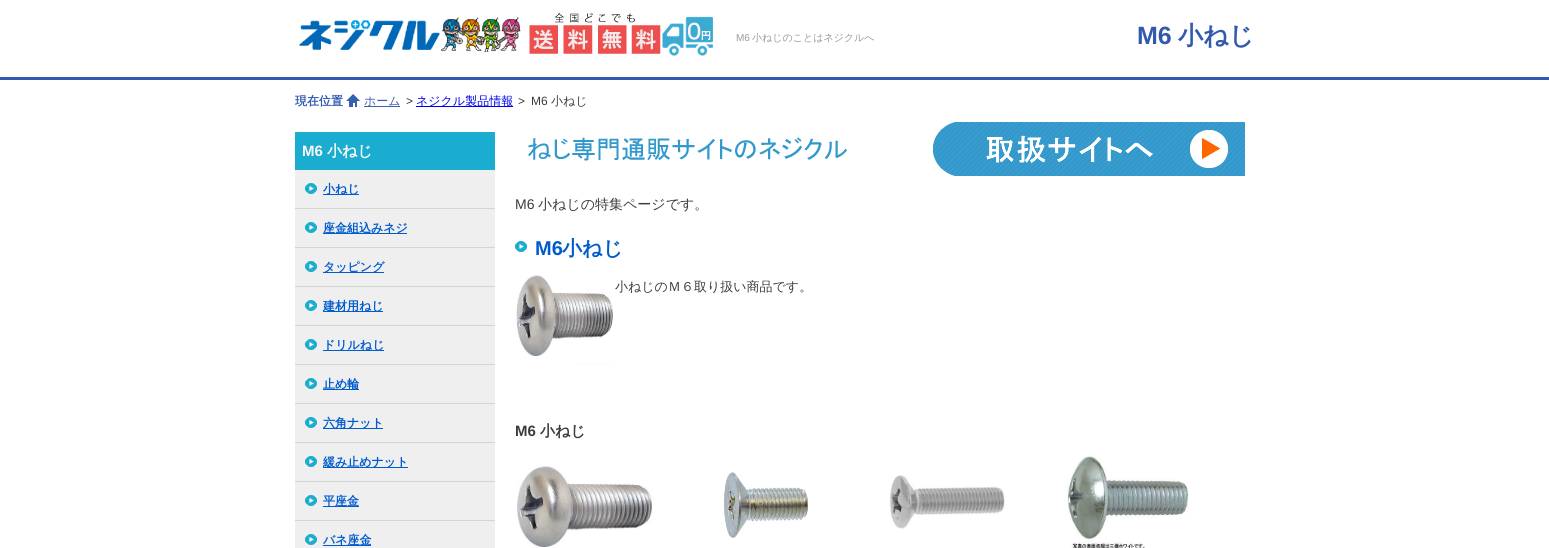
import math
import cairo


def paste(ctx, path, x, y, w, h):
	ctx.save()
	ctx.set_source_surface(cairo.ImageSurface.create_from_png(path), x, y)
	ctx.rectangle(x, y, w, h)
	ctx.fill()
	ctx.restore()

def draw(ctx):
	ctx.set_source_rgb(1, 1, 1)
	ctx.paint()
	ctx.set_source_rgb(0.192, 0.353, 0.686)
	ctx.rectangle(0, 77, 1549, 3)
	ctx.fill()
	paste(ctx, 'media/1.png', 299, 13, 414, 43)
	ctx.select_font_face('Liberation Sans')
	ctx.set_font_size(10)
	ctx.set_source_rgb(0.6, 0.6, 0.6)
	ctx.move_to(736, 41)
	ctx.show_text('M6')
	ctx.select_font_face('WenQuanYi Zen Hei Medium')
	ctx.move_to(752, 41)
	ctx.show_text('小ねじのことはネジクルへ')
	ctx.select_font_face('Liberation Sans', cairo.FONT_SLANT_NORMAL, cairo.FONT_WEIGHT_BOLD)
	ctx.set_font_size(25)
	ctx.set_source_rgb(0.192, 0.353, 0.686)
	ctx.move_to(1137, 44)
	ctx.show_text('M6')
	ctx.select_font_face('WenQuanYi Zen Hei', cairo.FONT_SLANT_NORMAL, cairo.FONT_WEIGHT_BOLD)
	ctx.move_to(1178, 44)
	ctx.show_text('小ねじ')
	ctx.set_font_size(12)
	ctx.move_to(295, 105)
	ctx.show_text('現在位置')
	paste(ctx, 'media/2.png', 346, 94, 14, 13)
	ctx.set_source_rgb(0.231, 0.38, 0.678)
	ctx.rectangle(364, 106, 36, 1)
	ctx.fill()
	ctx.select_font_face('WenQuanYi Zen Hei Medium')
	ctx.move_to(364, 105)
	ctx.show_text('ホーム')
	ctx.select_font_face('Liberation Sans')
	ctx.set_source_rgb(0.235, 0.235, 0.235)
	ctx.move_to(406, 105)
	ctx.show_text('>')
	ctx.set_source_rgb(0, 0, 0.933)
	ctx.rectangle(416, 106, 97, 1)
	ctx.fill()
	ctx.select_font_face('WenQuanYi Zen Hei Medium')
	ctx.move_to(416, 105)
	ctx.show_text('ネジクル製品情報')
	ctx.select_font_face('Liberation Sans')
	ctx.set_source_rgb(0.235, 0.235, 0.235)
	ctx.move_to(518, 105)
	ctx.show_text('>')
	ctx.move_to(531, 105)
	ctx.show_text('M6')
	ctx.select_font_face('WenQuanYi Zen Hei Medium')
	ctx.move_to(551, 105)
	ctx.show_text('小ねじ')
	ctx.set_source_rgb(0.106, 0.678, 0.812)
	ctx.rectangle(295, 132, 200, 38)
	ctx.fill()
	ctx.select_font_face('Liberation Sans', cairo.FONT_SLANT_NORMAL, cairo.FONT_WEIGHT_BOLD)
	ctx.set_font_size(15)
	ctx.set_source_rgb(0.98, 0.98, 0.98)
	ctx.move_to(302, 156)
	ctx.show_text('M6')
	ctx.select_font_face('WenQuanYi Zen Hei', cairo.FONT_SLANT_NORMAL, cairo.FONT_WEIGHT_BOLD)
	ctx.move_to(327, 156)
	ctx.show_text('小ねじ')
	ctx.set_source_rgb(0.937, 0.937, 0.937)
	ctx.rectangle(295, 170, 200, 38)
	ctx.fill()
	ctx.set_source_rgb(0.831, 0.831, 0.831)
	ctx.rectangle(295, 208, 200, 1)
	ctx.fill()
	paste(ctx, 'media/3.png', 305, 183, 12, 11)
	ctx.set_source_rgb(0, 0.357, 0.812)
	ctx.rectangle(323, 194, 36, 1)
	ctx.fill()
	ctx.set_font_size(12)
	ctx.move_to(323, 193)
	ctx.show_text('小ねじ')
	ctx.set_source_rgb(0.937, 0.937, 0.937)
	ctx.rectangle(295, 209, 200, 38)
	ctx.fill()
	ctx.set_source_rgb(0.831, 0.831, 0.831)
	ctx.rectangle(295, 247, 200, 1)
	ctx.fill()
	paste(ctx, 'media/3.png', 305, 222, 12, 11)
	ctx.set_source_rgb(0, 0.357, 0.812)
	ctx.rectangle(323, 233, 84, 1)
	ctx.fill()
	ctx.move_to(323, 232)
	ctx.show_text('座金組込みネジ')
	ctx.set_source_rgb(0.937, 0.937, 0.937)
	ctx.rectangle(295, 248, 200, 38)
	ctx.fill()
	ctx.set_source_rgb(0.831, 0.831, 0.831)
	ctx.rectangle(295, 286, 200, 1)
	ctx.fill()
	paste(ctx, 'media/3.png', 305, 261, 12, 11)
	ctx.set_source_rgb(0, 0.357, 0.812)
	ctx.rectangle(323, 272, 61, 1)
	ctx.fill()
	ctx.move_to(323, 271)
	ctx.show_text('タッピング')
	ctx.set_source_rgb(0.937, 0.937, 0.937)
	ctx.rectangle(295, 287, 200, 38)
	ctx.fill()
	ctx.set_source_rgb(0.831, 0.831, 0.831)
	ctx.rectangle(295, 325, 200, 1)
	ctx.fill()
	paste(ctx, 'media/3.png', 305, 300, 12, 11)
	ctx.set_source_rgb(0, 0.357, 0.812)
	ctx.rectangle(323, 311, 60, 1)
	ctx.fill()
	ctx.move_to(323, 310)
	ctx.show_text('建材用ねじ')
	ctx.set_source_rgb(0.937, 0.937, 0.937)
	ctx.rectangle(295, 326, 200, 38)
	ctx.fill()
	ctx.set_source_rgb(0.831, 0.831, 0.831)
	ctx.rectangle(295, 364, 200, 1)
	ctx.fill()
	paste(ctx, 'media/3.png', 305, 339, 12, 11)
	ctx.set_source_rgb(0, 0.357, 0.812)
	ctx.rectangle(323, 350, 61, 1)
	ctx.fill()
	ctx.move_to(323, 349)
	ctx.show_text('ドリルねじ')
	ctx.set_source_rgb(0.937, 0.937, 0.937)
	ctx.rectangle(295, 365, 200, 38)
	ctx.fill()
	ctx.set_source_rgb(0.831, 0.831, 0.831)
	ctx.rectangle(295, 403, 200, 1)
	ctx.fill()
	paste(ctx, 'media/3.png', 305, 378, 12, 11)
	ctx.set_source_rgb(0, 0.357, 0.812)
	ctx.rectangle(323, 389, 36, 1)
	ctx.fill()
	ctx.move_to(323, 388)
	ctx.show_text('止め輪')
	ctx.set_source_rgb(0.937, 0.937, 0.937)
	ctx.rectangle(295, 404, 200, 38)
	ctx.fill()
	ctx.set_source_rgb(0.831, 0.831, 0.831)
	ctx.rectangle(295, 442, 200, 1)
	ctx.fill()
	paste(ctx, 'media/3.png', 305, 417, 12, 11)
	ctx.set_source_rgb(0, 0.357, 0.812)
	ctx.rectangle(323, 428, 60, 1)
	ctx.fill()
	ctx.move_to(323, 427)
	ctx.show_text('六角ナット')
	ctx.set_source_rgb(0.937, 0.937, 0.937)
	ctx.rectangle(295, 443, 200, 38)
	ctx.fill()
	ctx.set_source_rgb(0.831, 0.831, 0.831)
	ctx.rectangle(295, 481, 200, 1)
	ctx.fill()
	paste(ctx, 'media/3.png', 305, 456, 12, 11)
	ctx.set_source_rgb(0, 0.357, 0.812)
	ctx.rectangle(323, 467, 85, 1)
	ctx.fill()
	ctx.move_to(323, 466)
	ctx.show_text('緩み止めナット')
	ctx.set_source_rgb(0.937, 0.937, 0.937)
	ctx.rectangle(295, 482, 200, 38)
	ctx.fill()
	ctx.set_source_rgb(0.831, 0.831, 0.831)
	ctx.rectangle(295, 520, 200, 1)
	ctx.fill()
	paste(ctx, 'media/3.png', 305, 495, 12, 11)
	ctx.set_source_rgb(0, 0.357, 0.812)
	ctx.rectangle(323, 506, 36, 1)
	ctx.fill()
	ctx.move_to(323, 505)
	ctx.show_text('平座金')
	ctx.set_source_rgb(0.937, 0.937, 0.937)
	ctx.rectangle(295, 521, 200, 27)
	ctx.fill()
	paste(ctx, 'media/3.png', 305, 534, 12, 11)
	ctx.set_source_rgb(0, 0.357, 0.812)
	ctx.rectangle(323, 545, 48, 1)
	ctx.fill()
	ctx.move_to(323, 544)
	ctx.show_text('バネ座金')
	paste(ctx, 'media/4.png', 528, 122, 717, 54)
	ctx.select_font_face('Liberation Sans')
	ctx.set_font_size(14)
	ctx.set_source_rgb(0.235, 0.235, 0.235)
	ctx.move_to(515, 209)
	ctx.show_text('M6')
	ctx.select_font_face('WenQuanYi Zen Hei Medium')
	ctx.move_to(538, 209)
	ctx.show_text('小ねじの特集ページです。')
	paste(ctx, 'media/5.png', 515, 241, 12, 11)
	ctx.select_font_face('Liberation Sans', cairo.FONT_SLANT_NORMAL, cairo.FONT_WEIGHT_BOLD)
	ctx.set_font_size(20)
	ctx.set_source_rgb(0, 0.357, 0.812)
	ctx.move_to(535, 255)
	ctx.show_text('M6')
	ctx.select_font_face('WenQuanYi Zen Hei', cairo.FONT_SLANT_NORMAL, cairo.FONT_WEIGHT_BOLD)
	ctx.move_to(562, 255)
	ctx.show_text('小ねじ')
	paste(ctx, 'media/6.png', 516, 275, 97, 89)
	ctx.select_font_face('WenQuanYi Zen Hei Medium')
	ctx.set_font_size(13)
	ctx.set_source_rgb(0.235, 0.235, 0.235)
	ctx.move_to(615, 291)
	ctx.show_text('小ねじのＭ６取り扱い商品です。')
	ctx.select_font_face('Liberation Sans', cairo.FONT_SLANT_NORMAL, cairo.FONT_WEIGHT_BOLD)
	ctx.set_font_size(15)
	ctx.move_to(515, 436)
	ctx.show_text('M6')
	ctx.select_font_face('WenQuanYi Zen Hei', cairo.FONT_SLANT_NORMAL, cairo.FONT_WEIGHT_BOLD)
	ctx.move_to(540, 436)
	ctx.show_text('小ねじ')
	paste(ctx, 'media/7.png', 517, 466, 136, 81)
	paste(ctx, 'media/8.png', 724, 472, 84, 66)
	paste(ctx, 'media/9.png', 890, 475, 115, 54)
	paste(ctx, 'media/10.png', 1067, 455, 122, 93)


surface = cairo.ImageSurface(cairo.FORMAT_RGB24, 1549, 548)
ctx = cairo.Context(surface)
options = cairo.FontOptions()
options.set_hint_metrics(cairo.HINT_METRICS_OFF)
options.set_hint_style(cairo.HINT_STYLE_NONE)
ctx.set_font_options(options)
ctx.set_miter_limit(4)
draw(ctx)
surface.write_to_png('image.png')
